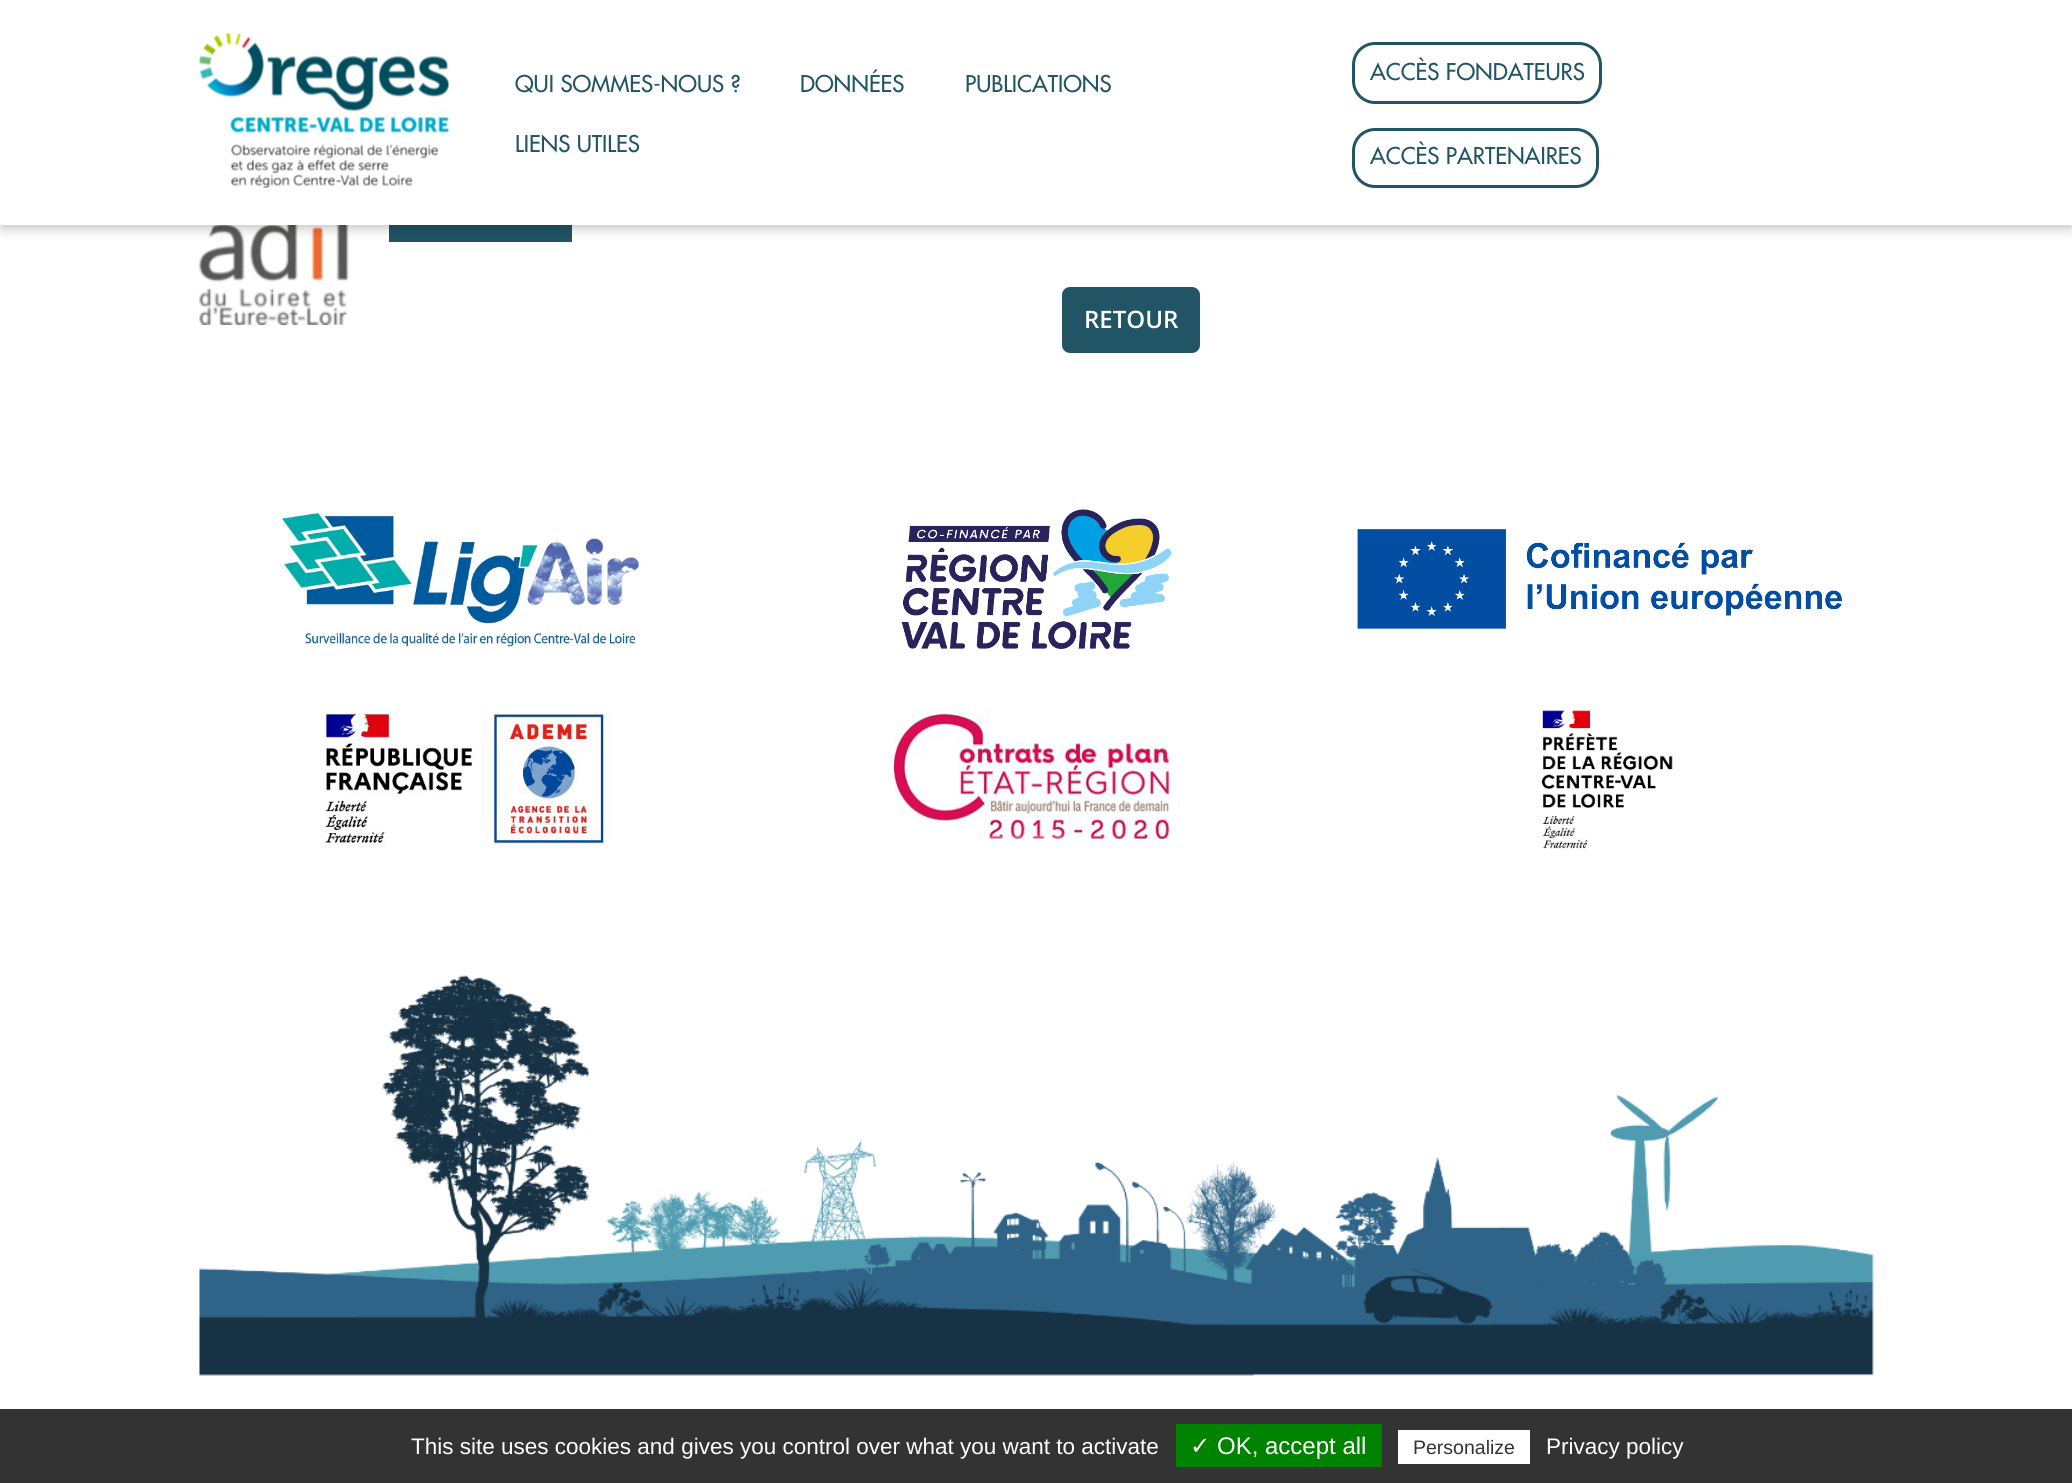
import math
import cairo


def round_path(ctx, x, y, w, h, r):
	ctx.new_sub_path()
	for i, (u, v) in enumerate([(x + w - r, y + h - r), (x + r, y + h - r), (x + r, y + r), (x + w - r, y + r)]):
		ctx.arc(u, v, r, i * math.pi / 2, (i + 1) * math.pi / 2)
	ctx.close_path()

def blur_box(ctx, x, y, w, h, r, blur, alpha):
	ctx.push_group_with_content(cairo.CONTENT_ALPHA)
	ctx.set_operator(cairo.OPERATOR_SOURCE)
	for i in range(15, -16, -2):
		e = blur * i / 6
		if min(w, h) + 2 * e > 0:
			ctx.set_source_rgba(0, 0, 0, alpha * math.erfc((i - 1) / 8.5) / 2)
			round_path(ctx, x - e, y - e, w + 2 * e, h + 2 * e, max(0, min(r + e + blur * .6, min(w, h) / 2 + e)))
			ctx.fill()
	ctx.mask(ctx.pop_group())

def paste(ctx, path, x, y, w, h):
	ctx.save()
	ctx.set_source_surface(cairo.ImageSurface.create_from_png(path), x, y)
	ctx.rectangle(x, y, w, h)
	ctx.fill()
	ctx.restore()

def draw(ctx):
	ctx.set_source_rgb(1, 1, 1)
	ctx.paint()
	paste(ctx, 'media/2.png', 199, 225, 150, 100)
	ctx.set_source_rgb(0.129, 0.329, 0.396)
	ctx.rectangle(389, 225, 183, 17)
	ctx.fill()
	ctx.set_source_rgb(0, 0, 0)
	blur_box(ctx, 2, 6, 2070, 222, 0, 6, 0.25)
	ctx.set_source_rgb(1, 1, 1)
	ctx.rectangle(0, 0, 2072, 225)
	ctx.fill()
	paste(ctx, 'media/1.png', 199, 33, 250, 155)
	ctx.select_font_face('Futura Medium')
	ctx.set_font_size(22.5)
	ctx.set_source_rgb(0.129, 0.329, 0.396)
	for x, y, s in [
		(515, 92, 'QUI SOMMES-NOUS ?'),
		(800, 92, 'DONNÉES'),
		(965, 92, 'PUBLICATIONS'),
		(515, 152, 'LIENS UTILES'),
	]:
		ctx.move_to(x, y)
		ctx.show_text(s)
	round_path(ctx, 1353.5, 43.5, 247, 59, 21.5)
	ctx.set_line_width(3)
	ctx.stroke()
	ctx.move_to(1370, 80)
	ctx.show_text('ACCÈS FONDATEURS')
	round_path(ctx, 1353.5, 129.5, 244, 57, 21.5)
	ctx.stroke()
	ctx.move_to(1370, 164)
	ctx.show_text('ACCÈS PARTENAIRES')
	round_path(ctx, 1062, 287, 138, 66, 8)
	ctx.fill()
	ctx.select_font_face('Open Sans SemiBold')
	ctx.set_font_size(24)
	ctx.set_source_rgb(1, 1, 1)
	ctx.move_to(1084, 328)
	ctx.show_text('RETOUR')
	paste(ctx, 'media/3.png', 281, 510, 361, 139)
	paste(ctx, 'media/4.png', 901, 509, 271, 140)
	paste(ctx, 'media/5.png', 1357, 529, 486, 100)
	paste(ctx, 'media/6.png', 321, 710, 291, 140)
	paste(ctx, 'media/7.png', 894, 709, 285, 135)
	paste(ctx, 'media/8.png', 1541, 710, 132, 139)
	paste(ctx, 'media/9.png', 199, 975, 1675, 401)
	ctx.set_source_rgb(0.2, 0.2, 0.2)
	ctx.rectangle(0, 1409, 2072, 74)
	ctx.fill()
	ctx.select_font_face('Liberation Sans')
	ctx.set_font_size(22.5)
	ctx.set_source_rgb(1, 1, 1)
	ctx.move_to(411, 1454)
	ctx.show_text('This site uses cookies and gives you control over what you want to activate')
	ctx.set_source_rgb(0, 0.514, 0)
	ctx.rectangle(1176, 1424, 206, 43)
	ctx.fill()
	ctx.select_font_face('DejaVu Sans')
	ctx.set_font_size(24)
	ctx.set_source_rgb(1, 1, 1)
	ctx.move_to(1190, 1454)
	ctx.show_text('✓')
	ctx.select_font_face('Liberation Sans')
	ctx.move_to(1217, 1454)
	ctx.show_text('OK, accept all')
	ctx.rectangle(1398, 1430, 132, 34)
	ctx.fill()
	ctx.set_font_size(19.5)
	ctx.set_source_rgb(0.2, 0.2, 0.2)
	ctx.move_to(1413, 1454)
	ctx.show_text('Personalize')
	ctx.set_font_size(22.5)
	ctx.set_source_rgb(1, 1, 1)
	ctx.move_to(1546, 1454)
	ctx.show_text('Privacy policy')


surface = cairo.ImageSurface(cairo.FORMAT_RGB24, 2072, 1483)
ctx = cairo.Context(surface)
options = cairo.FontOptions()
options.set_hint_metrics(cairo.HINT_METRICS_OFF)
options.set_hint_style(cairo.HINT_STYLE_NONE)
ctx.set_font_options(options)
ctx.set_miter_limit(4)
draw(ctx)
surface.write_to_png('image.png')
